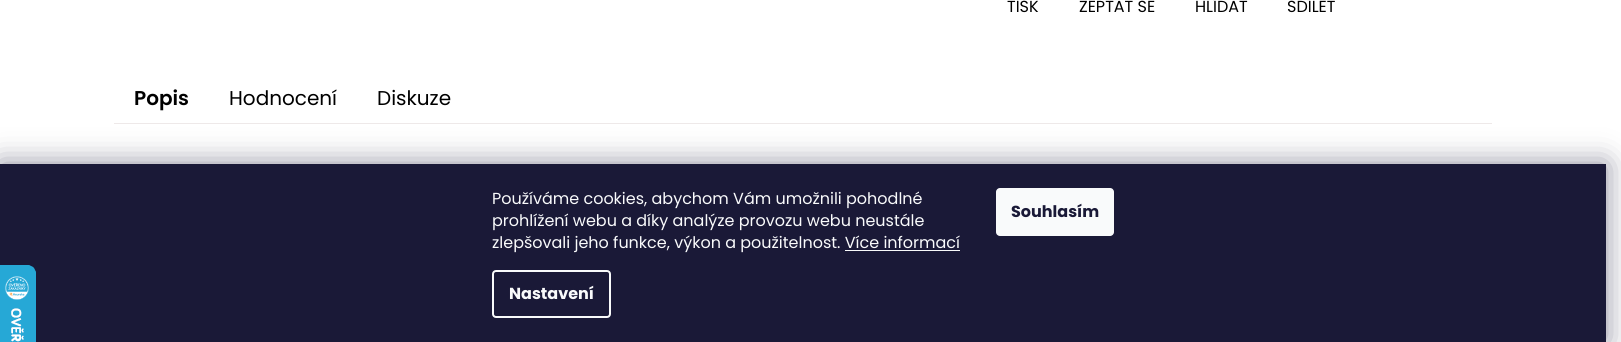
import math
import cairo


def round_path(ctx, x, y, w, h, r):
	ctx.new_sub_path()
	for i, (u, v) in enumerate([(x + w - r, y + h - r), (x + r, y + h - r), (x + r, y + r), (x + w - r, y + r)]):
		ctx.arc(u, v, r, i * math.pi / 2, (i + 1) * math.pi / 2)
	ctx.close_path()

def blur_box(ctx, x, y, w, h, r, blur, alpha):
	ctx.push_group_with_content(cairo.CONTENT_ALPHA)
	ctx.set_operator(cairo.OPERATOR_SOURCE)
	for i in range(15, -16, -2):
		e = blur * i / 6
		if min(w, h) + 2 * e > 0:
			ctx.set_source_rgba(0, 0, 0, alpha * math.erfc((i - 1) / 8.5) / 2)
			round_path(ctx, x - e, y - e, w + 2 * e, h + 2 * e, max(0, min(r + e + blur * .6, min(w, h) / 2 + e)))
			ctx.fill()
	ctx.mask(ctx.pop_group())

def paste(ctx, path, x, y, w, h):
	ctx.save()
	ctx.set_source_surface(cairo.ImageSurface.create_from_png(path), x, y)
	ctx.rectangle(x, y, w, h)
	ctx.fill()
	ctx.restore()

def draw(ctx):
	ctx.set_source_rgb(1, 1, 1)
	ctx.paint()
	ctx.select_font_face('Poppins')
	ctx.set_font_size(16)
	ctx.set_source_rgb(0, 0, 0)
	for x, y, s in [
		(1007, 12, 'TISK'),
		(1079, 12, 'ZEPTAT SE'),
		(1195, 12, 'HLÍDAT'),
		(1287, 12, 'SDÍLET'),
	]:
		ctx.move_to(x, y)
		ctx.show_text(s)
	ctx.set_source_rgb(0.933, 0.914, 0.914)
	ctx.rectangle(114, 123, 1378, 1)
	ctx.fill()
	ctx.select_font_face('Poppins SemiBold')
	ctx.set_font_size(20)
	ctx.set_source_rgb(0, 0, 0)
	ctx.move_to(134, 105)
	ctx.show_text('Popis')
	ctx.select_font_face('Poppins')
	ctx.move_to(229, 105)
	ctx.show_text('Hodnocení')
	ctx.move_to(377, 105)
	ctx.show_text('Diskuze')
	ctx.set_source_rgb(0.106, 0.098, 0.224)
	blur_box(ctx, 0, 164, 1606, 178, 0, 15, 0.5)
	ctx.set_source_rgb(0.102, 0.098, 0.216)
	ctx.rectangle(0, 164, 1606, 178)
	ctx.fill()
	paste(ctx, 'media/1.png', 0, 265, 36, 77)
	ctx.set_font_size(16)
	ctx.set_source_rgb(0.973, 0.98, 0.984)
	for x, y, s in [
		(492, 204, 'Používáme cookies, abychom Vám umožnili pohodlné'),
		(492, 226, 'prohlížení webu a díky analýze provozu webu neustále'),
		(492, 248, 'zlepšovali jeho funkce, výkon a použitelnost. Více informací'),
	]:
		ctx.move_to(x, y)
		ctx.show_text(s)
	ctx.rectangle(845, 250, 115, 1)
	ctx.fill()
	round_path(ctx, 493, 271, 117, 46, 3)
	ctx.stroke()
	ctx.select_font_face('Poppins', cairo.FONT_SLANT_NORMAL, cairo.FONT_WEIGHT_BOLD)
	ctx.move_to(509, 299)
	ctx.show_text('Nastavení')
	round_path(ctx, 996, 188, 118, 48, 4)
	ctx.fill()
	ctx.set_source_rgb(0.102, 0.098, 0.216)
	ctx.move_to(1011, 217)
	ctx.show_text('Souhlasím')


surface = cairo.ImageSurface(cairo.FORMAT_RGB24, 1621, 342)
ctx = cairo.Context(surface)
options = cairo.FontOptions()
options.set_hint_metrics(cairo.HINT_METRICS_OFF)
options.set_hint_style(cairo.HINT_STYLE_NONE)
ctx.set_font_options(options)
ctx.set_miter_limit(4)
draw(ctx)
surface.write_to_png('image.png')
